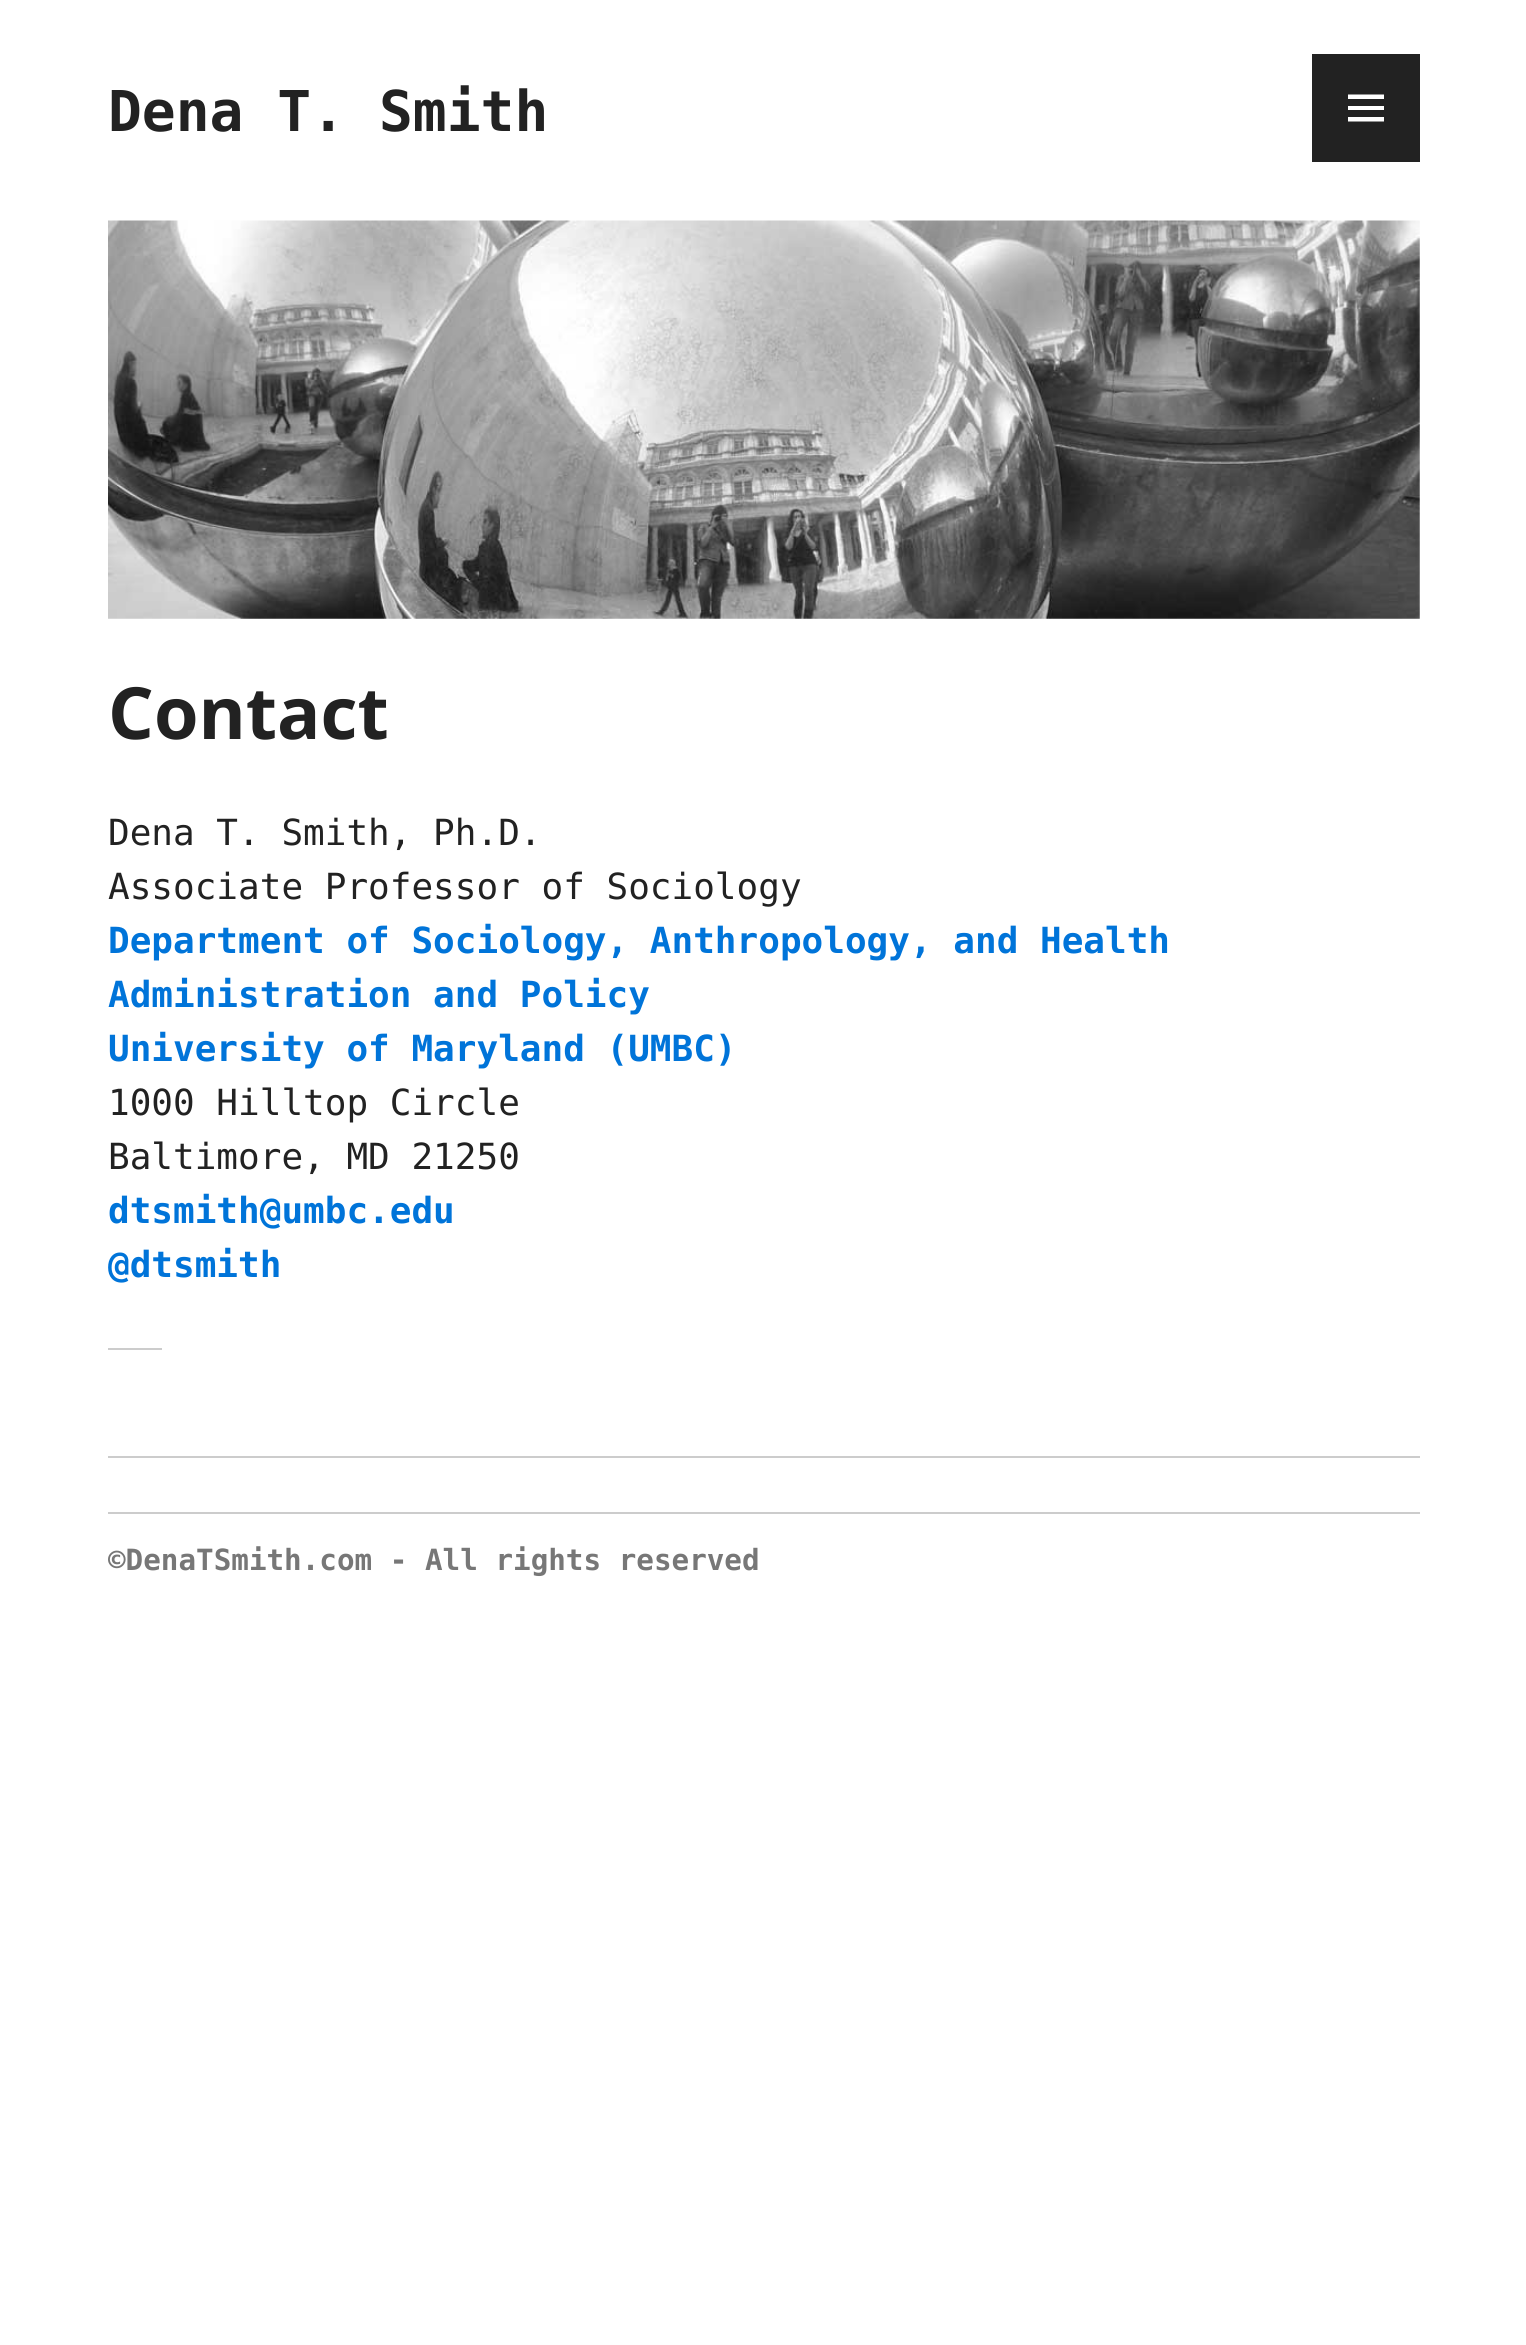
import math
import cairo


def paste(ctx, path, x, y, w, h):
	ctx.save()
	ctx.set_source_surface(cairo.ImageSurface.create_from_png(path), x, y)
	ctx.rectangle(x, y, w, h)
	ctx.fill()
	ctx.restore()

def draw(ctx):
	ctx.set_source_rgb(1, 1, 1)
	ctx.paint()
	ctx.select_font_face('DejaVu Sans Mono', cairo.FONT_SLANT_NORMAL, cairo.FONT_WEIGHT_BOLD)
	ctx.set_font_size(56.25)
	ctx.set_source_rgb(0.133, 0.133, 0.133)
	ctx.move_to(108, 131)
	ctx.show_text('Dena T. Smith')
	ctx.rectangle(1312, 54, 108, 108)
	ctx.fill()
	ctx.set_source_rgb(1, 1, 1)
	ctx.new_path()
	ctx.move_to(1348, 121.5)
	ctx.line_to(1348, 117)
	ctx.line_to(1384, 117)
	ctx.line_to(1384, 121.5)
	ctx.close_path()
	ctx.move_to(1348, 94.5)
	ctx.line_to(1384, 94.5)
	ctx.line_to(1384, 99)
	ctx.line_to(1348, 99)
	ctx.close_path()
	ctx.move_to(1348, 110)
	ctx.line_to(1348, 106)
	ctx.line_to(1384, 106)
	ctx.line_to(1384, 110)
	ctx.close_path()
	ctx.fill()
	paste(ctx, 'media/1.png', 108, 220, 1312, 399)
	ctx.set_source_rgb(0.8, 0.8, 0.8)
	ctx.rectangle(108, 1456, 1312, 2)
	ctx.fill()
	ctx.select_font_face('Open Sans', cairo.FONT_SLANT_NORMAL, cairo.FONT_WEIGHT_BOLD)
	ctx.set_font_size(72)
	ctx.set_source_rgb(0.133, 0.133, 0.133)
	ctx.move_to(108, 739)
	ctx.show_text('Contact')
	ctx.select_font_face('DejaVu Sans Mono')
	ctx.set_font_size(36)
	ctx.move_to(108, 845)
	ctx.show_text('Dena T. Smith, Ph.D.')
	ctx.move_to(108, 899)
	ctx.show_text('Associate Professor of Sociology')
	ctx.select_font_face('DejaVu Sans Mono', cairo.FONT_SLANT_NORMAL, cairo.FONT_WEIGHT_BOLD)
	ctx.set_source_rgb(0, 0.455, 0.851)
	for x, y, s in [
		(108, 953, 'Department of Sociology, Anthropology, and Health'),
		(108, 1007, 'Administration and Policy'),
		(108, 1061, 'University of Maryland (UMBC)'),
	]:
		ctx.move_to(x, y)
		ctx.show_text(s)
	ctx.select_font_face('DejaVu Sans Mono')
	ctx.set_source_rgb(0.133, 0.133, 0.133)
	ctx.move_to(108, 1115)
	ctx.show_text('1000 Hilltop Circle')
	ctx.move_to(108, 1169)
	ctx.show_text('Baltimore, MD 21250')
	ctx.select_font_face('DejaVu Sans Mono', cairo.FONT_SLANT_NORMAL, cairo.FONT_WEIGHT_BOLD)
	ctx.set_source_rgb(0, 0.455, 0.851)
	ctx.move_to(108, 1223)
	ctx.show_text('dtsmith@umbc.edu')
	ctx.move_to(108, 1277)
	ctx.show_text('@dtsmith')
	ctx.set_source_rgb(0.8, 0.8, 0.8)
	ctx.rectangle(108, 1348, 54, 2)
	ctx.fill()
	ctx.rectangle(108, 1512, 1312, 2)
	ctx.fill()
	ctx.set_font_size(29.25)
	ctx.set_source_rgb(0.467, 0.467, 0.467)
	ctx.move_to(108, 1570)
	ctx.show_text('©DenaTSmith.com - All rights reserved')


surface = cairo.ImageSurface(cairo.FORMAT_RGB24, 1526, 2345)
ctx = cairo.Context(surface)
options = cairo.FontOptions()
options.set_hint_metrics(cairo.HINT_METRICS_OFF)
options.set_hint_style(cairo.HINT_STYLE_NONE)
ctx.set_font_options(options)
ctx.set_miter_limit(4)
draw(ctx)
surface.write_to_png('image.png')
